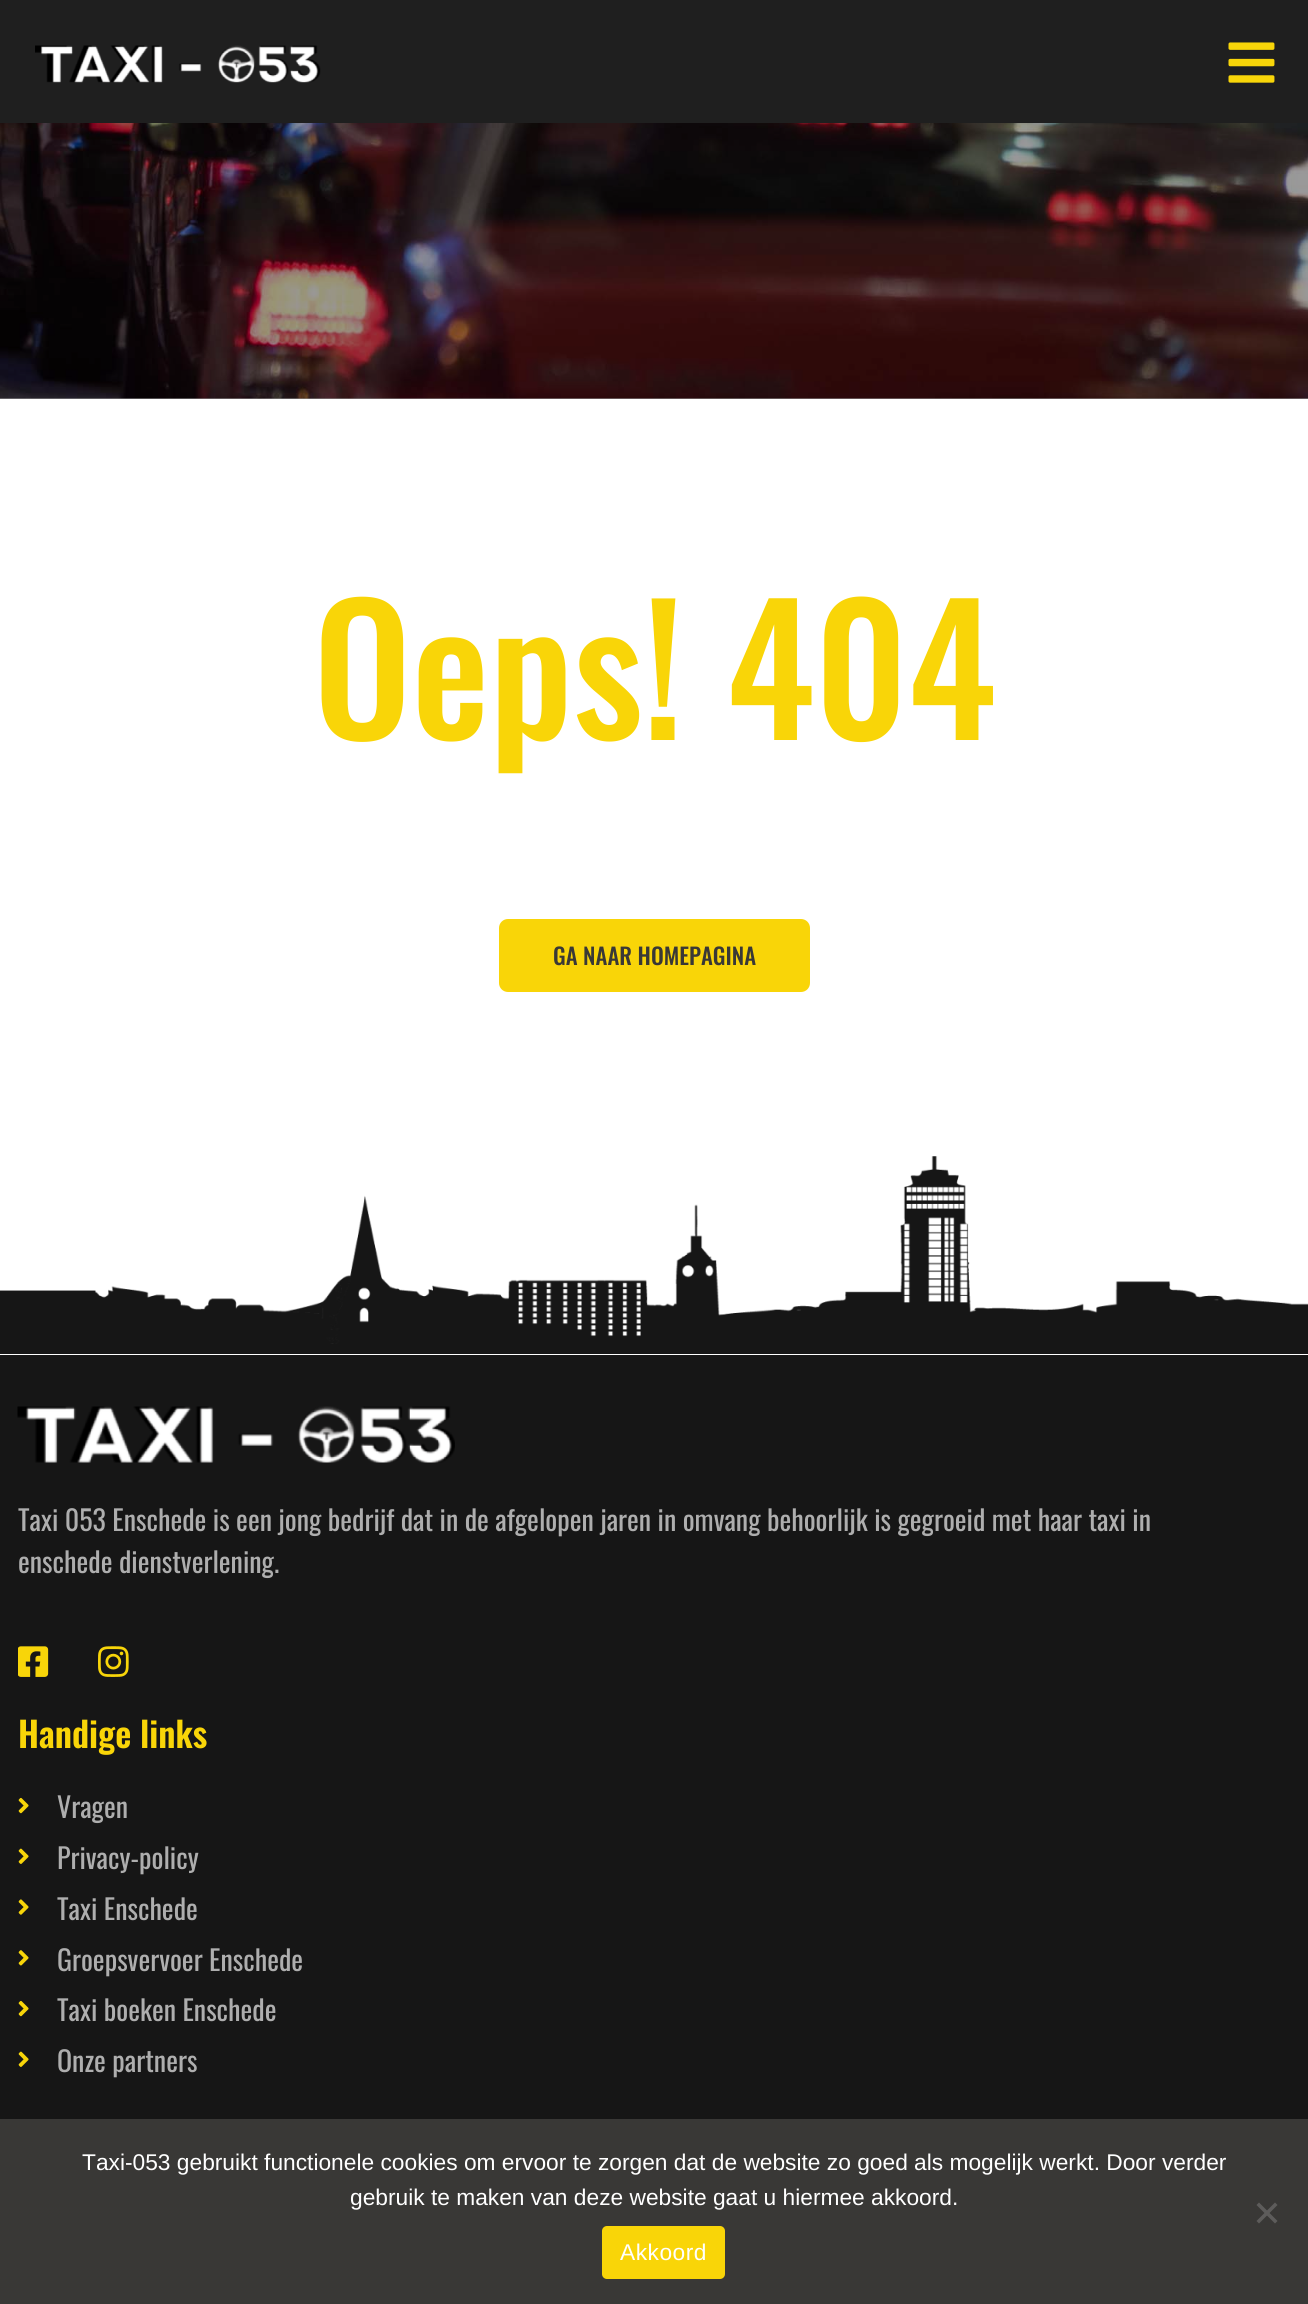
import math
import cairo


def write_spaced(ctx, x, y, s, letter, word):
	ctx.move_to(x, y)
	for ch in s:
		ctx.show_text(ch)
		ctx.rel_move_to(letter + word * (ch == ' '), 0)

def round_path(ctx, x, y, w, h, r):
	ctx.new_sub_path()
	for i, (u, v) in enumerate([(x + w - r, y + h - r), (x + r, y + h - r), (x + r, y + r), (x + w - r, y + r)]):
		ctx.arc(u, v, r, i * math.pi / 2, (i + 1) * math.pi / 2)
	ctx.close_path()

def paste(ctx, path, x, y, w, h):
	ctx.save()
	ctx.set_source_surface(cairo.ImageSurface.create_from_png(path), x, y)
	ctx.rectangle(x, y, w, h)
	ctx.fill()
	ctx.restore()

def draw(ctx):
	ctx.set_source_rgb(1, 1, 1)
	ctx.paint()
	ctx.set_source_rgb(0.6, 0.6, 0.6)
	ctx.rectangle(0, 398, 1308, 1)
	ctx.fill()
	ctx.set_source_rgb(0.122, 0.122, 0.122)
	ctx.rectangle(0, 0, 1308, 123)
	ctx.fill()
	paste(ctx, 'media/1.png', 35, 45, 286, 38)
	paste(ctx, 'media/2.png', 1228, 42, 47, 41)
	paste(ctx, 'media/3.png', 0, 123, 1308, 276)
	ctx.select_font_face('Oswald Medium')
	ctx.set_font_size(175)
	ctx.set_source_rgb(0.973, 0.835, 0.035)
	ctx.move_to(313, 740)
	ctx.show_text('Oeps! 404')
	round_path(ctx, 500, 920, 309, 71, 8)
	ctx.fill_preserve()
	ctx.stroke()
	ctx.set_font_size(22.75)
	ctx.set_source_rgb(0.224, 0.22, 0.212)
	ctx.move_to(553, 965)
	ctx.show_text('GA NAAR HOMEPAGINA')
	paste(ctx, 'media/4.png', 0, 1156, 1308, 198)
	ctx.set_source_rgb(0.086, 0.086, 0.086)
	ctx.rectangle(0, 1355, 1308, 764)
	ctx.fill()
	paste(ctx, 'media/5.png', 17, 1406, 438, 57)
	ctx.select_font_face('Oswald')
	ctx.set_font_size(28)
	ctx.set_source_rgb(0.682, 0.682, 0.682)
	ctx.move_to(18, 1531)
	ctx.show_text('Taxi 053 Enschede is een jong bedrijf dat in de afgelopen jaren in omvang behoorlijk is gegroeid met haar taxi in')
	ctx.move_to(18, 1573)
	ctx.show_text('enschede dienstverlening.')
	paste(ctx, 'media/6.png', 18, 1646, 31, 31)
	paste(ctx, 'media/7.png', 98, 1646, 31, 31)
	ctx.select_font_face('Oswald SemiBold')
	ctx.set_font_size(35)
	ctx.set_source_rgb(0.973, 0.835, 0.035)
	ctx.move_to(18, 1748)
	ctx.show_text('Handige links')
	paste(ctx, 'media/8.png', 18, 1797, 11, 17)
	ctx.select_font_face('Oswald')
	ctx.set_font_size(28)
	ctx.set_source_rgb(0.682, 0.682, 0.682)
	ctx.move_to(57, 1818)
	ctx.show_text('Vragen')
	paste(ctx, 'media/9.png', 18, 1848, 11, 16)
	ctx.move_to(57, 1869)
	ctx.show_text('Privacy-policy')
	paste(ctx, 'media/10.png', 18, 1899, 11, 16)
	ctx.move_to(57, 1920)
	ctx.show_text('Taxi Enschede')
	paste(ctx, 'media/11.png', 18, 1950, 11, 16)
	ctx.move_to(57, 1971)
	ctx.show_text('Groepsvervoer Enschede')
	paste(ctx, 'media/8.png', 18, 2000, 11, 17)
	ctx.move_to(57, 2021)
	ctx.show_text('Taxi boeken Enschede')
	paste(ctx, 'media/9.png', 18, 2051, 11, 16)
	ctx.move_to(57, 2072)
	ctx.show_text('Onze partners')
	ctx.set_source_rgb(0.224, 0.22, 0.212)
	ctx.rectangle(0, 2119, 1308, 185)
	ctx.fill()
	ctx.select_font_face('Liberation Sans')
	ctx.set_font_size(22.75)
	ctx.set_source_rgb(1, 1, 1)
	ctx.move_to(82, 2170)
	ctx.show_text('Taxi-053 gebruikt functionele cookies om ervoor te zorgen dat de website zo goed als mogelijk werkt. Door verder')
	ctx.move_to(350, 2205)
	ctx.show_text('gebruik te maken van deze website gaat u hiermee akkoord.')
	ctx.set_source_rgb(0.365, 0.361, 0.357)
	ctx.new_path()
	ctx.move_to(1275, 2202.5)
	ctx.line_to(1277.5, 2205)
	ctx.line_to(1259, 2223.5)
	ctx.line_to(1256.5, 2221)
	ctx.close_path()
	ctx.fill()
	ctx.new_path()
	ctx.move_to(1256.5, 2205)
	ctx.line_to(1259, 2202.5)
	ctx.line_to(1277.5, 2221)
	ctx.line_to(1275, 2223.5)
	ctx.close_path()
	ctx.fill()
	ctx.set_source_rgb(0.973, 0.835, 0.035)
	round_path(ctx, 602, 2226, 123, 53, 5)
	ctx.fill()
	ctx.set_source_rgb(1, 1, 1)
	write_spaced(ctx, 620, 2260, 'Akkoord', 0.5, 0)


surface = cairo.ImageSurface(cairo.FORMAT_RGB24, 1308, 2304)
ctx = cairo.Context(surface)
options = cairo.FontOptions()
options.set_hint_metrics(cairo.HINT_METRICS_OFF)
options.set_hint_style(cairo.HINT_STYLE_NONE)
ctx.set_font_options(options)
ctx.set_miter_limit(4)
draw(ctx)
surface.write_to_png('image.png')
